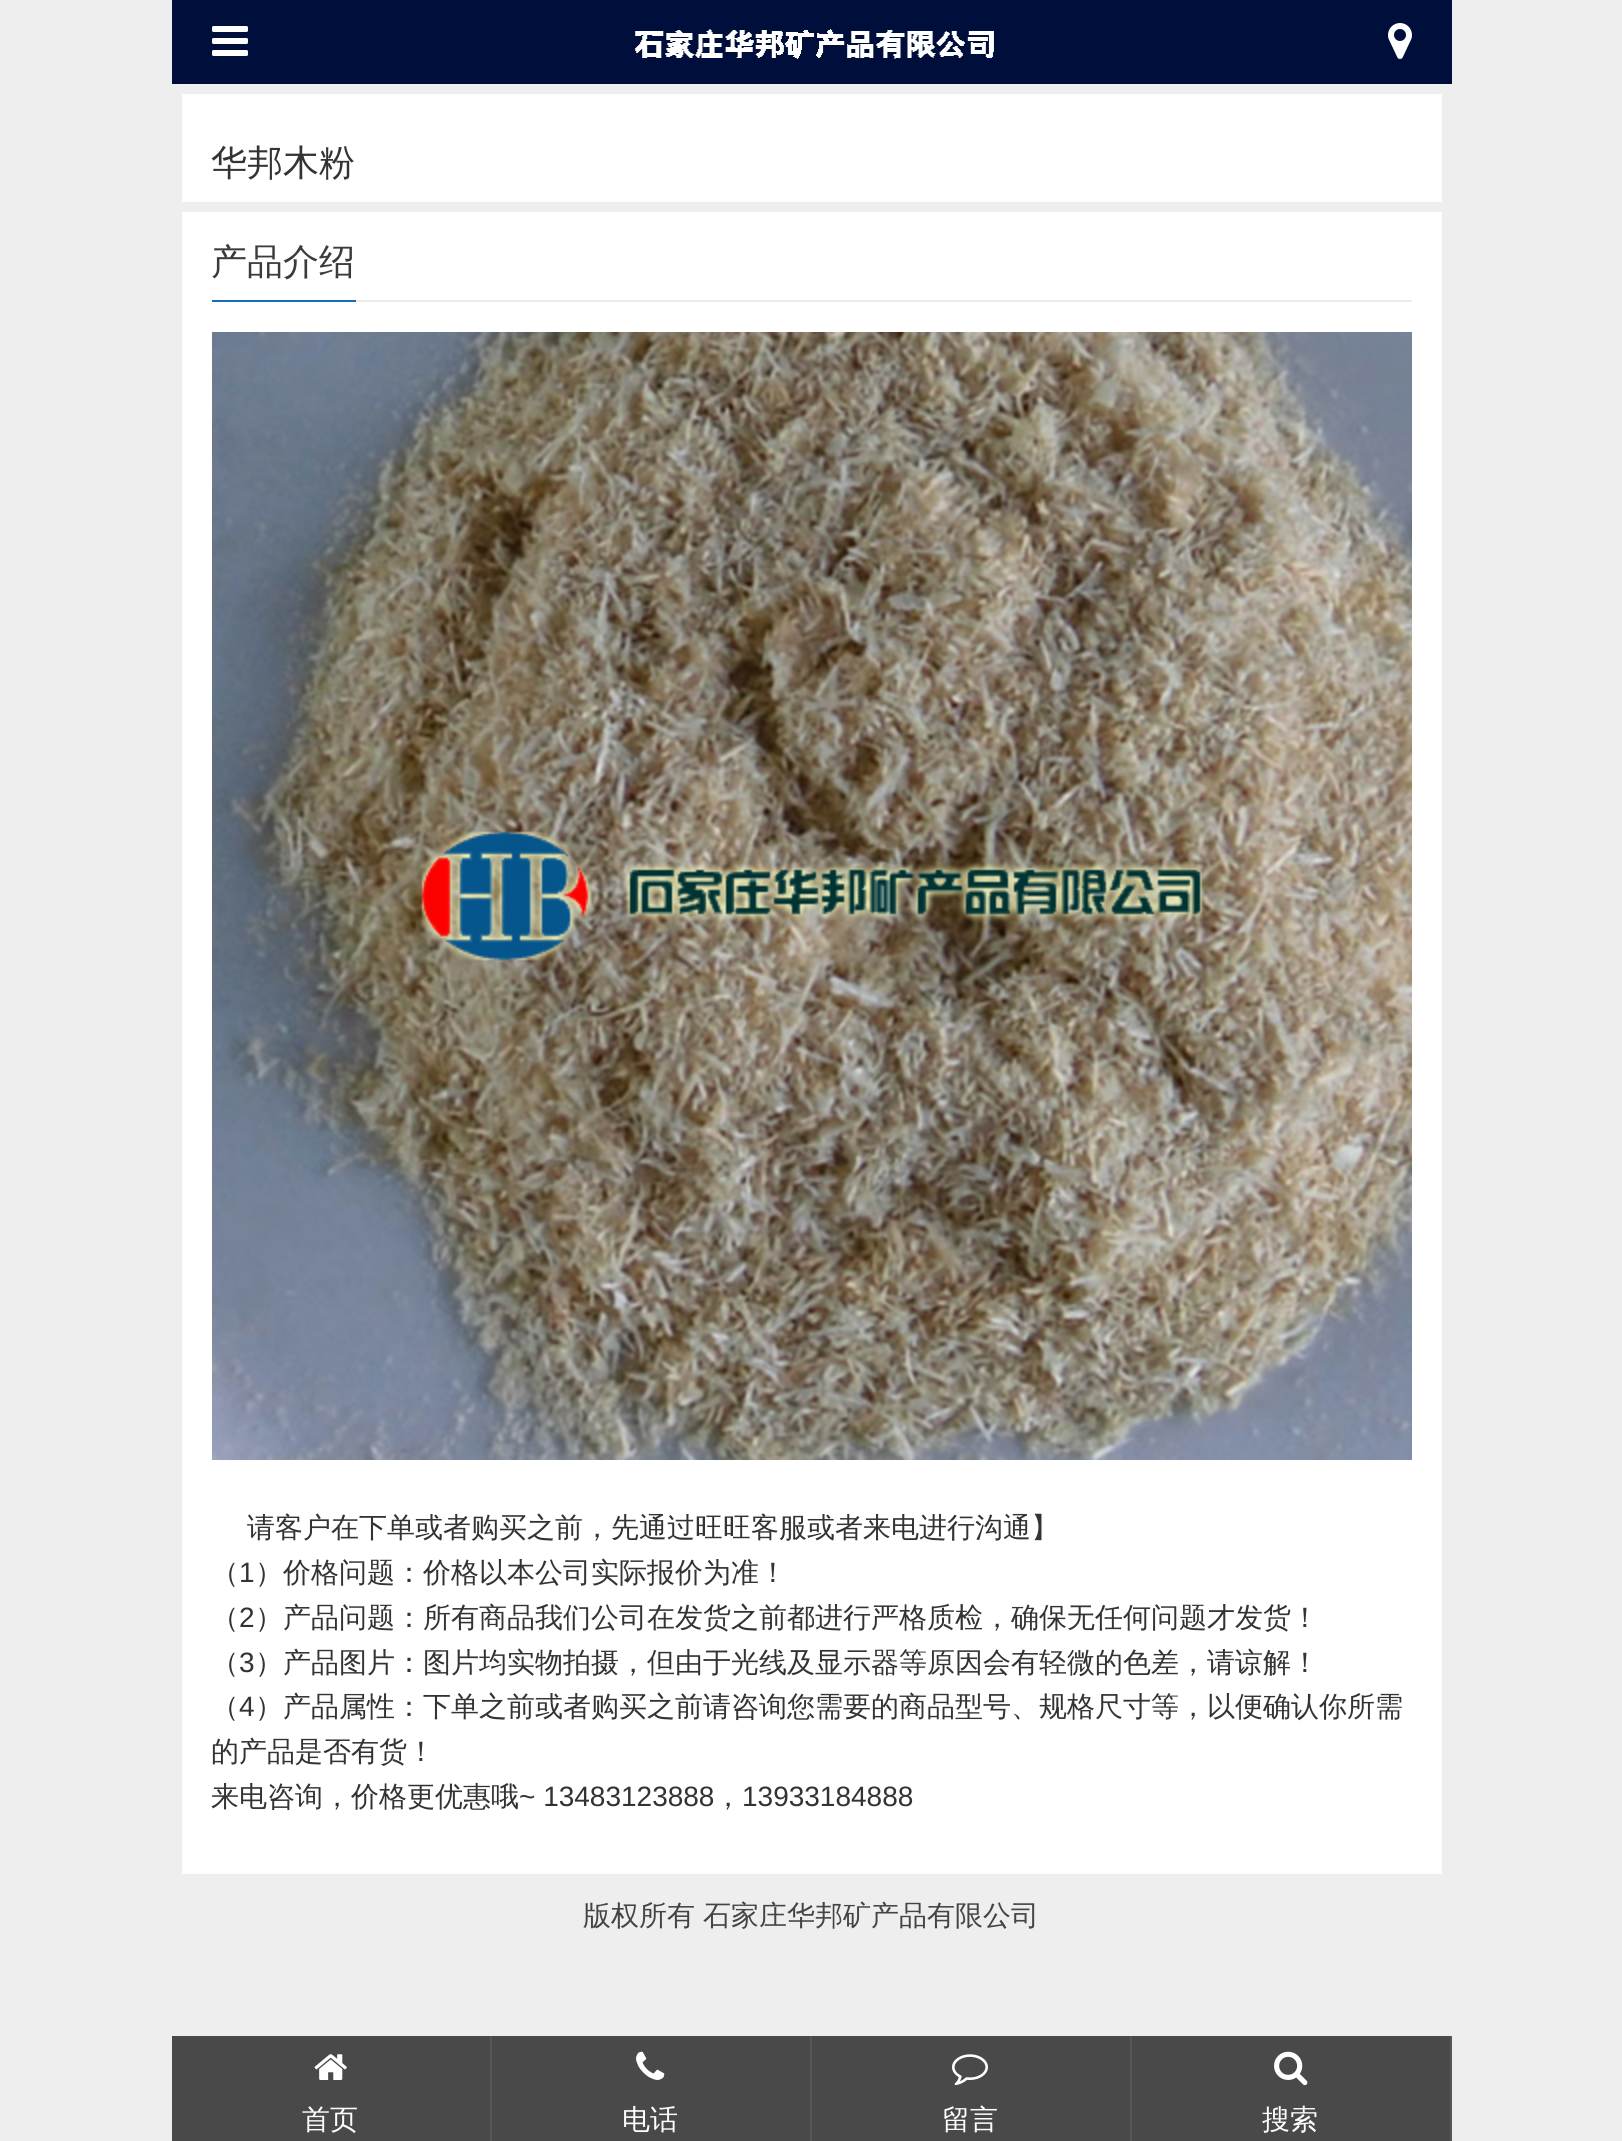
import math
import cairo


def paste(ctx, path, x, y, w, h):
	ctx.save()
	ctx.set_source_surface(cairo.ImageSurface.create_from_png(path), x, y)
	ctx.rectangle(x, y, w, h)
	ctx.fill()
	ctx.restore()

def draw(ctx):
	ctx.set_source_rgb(0.933, 0.933, 0.933)
	ctx.paint()
	ctx.set_source_rgb(0, 0.055, 0.231)
	ctx.rectangle(172, 0, 1280, 84)
	ctx.fill()
	paste(ctx, 'media/1.png', 212, 26, 36, 30)
	paste(ctx, 'media/2.png', 635, 29, 359, 30)
	paste(ctx, 'media/3.png', 1388, 23, 24, 36)
	ctx.set_source_rgb(1, 1, 1)
	ctx.rectangle(182, 94, 1260, 108)
	ctx.fill()
	ctx.select_font_face('WenQuanYi Zen Hei Medium')
	ctx.set_font_size(36)
	ctx.set_source_rgb(0.2, 0.2, 0.2)
	ctx.move_to(211, 175)
	ctx.show_text('华邦木粉')
	ctx.set_source_rgb(1, 1, 1)
	ctx.rectangle(182, 212, 1260, 1662)
	ctx.fill()
	ctx.set_source_rgb(0.918, 0.918, 0.918)
	ctx.rectangle(356, 300, 1056, 2)
	ctx.fill()
	ctx.set_source_rgb(0.082, 0.431, 0.722)
	ctx.rectangle(212, 300, 144, 2)
	ctx.fill()
	ctx.set_source_rgb(0.231, 0.231, 0.231)
	ctx.move_to(211, 274)
	ctx.show_text('产品介绍')
	paste(ctx, 'media/4.png', 212, 332, 1200, 1128)
	ctx.set_font_size(28)
	ctx.set_source_rgb(0.2, 0.2, 0.2)
	ctx.move_to(247, 1537)
	ctx.show_text('请客户在下单或者购买之前，先通过旺旺客服或者来电进行沟通】')
	ctx.move_to(211, 1582)
	ctx.show_text('（')
	ctx.select_font_face('Liberation Sans')
	ctx.move_to(239, 1582)
	ctx.show_text('1')
	ctx.select_font_face('WenQuanYi Zen Hei Medium')
	ctx.move_to(255, 1582)
	ctx.show_text('）价格问题：价格以本公司实际报价为准！')
	ctx.move_to(211, 1627)
	ctx.show_text('（')
	ctx.select_font_face('Liberation Sans')
	ctx.move_to(239, 1627)
	ctx.show_text('2')
	ctx.select_font_face('WenQuanYi Zen Hei Medium')
	ctx.move_to(255, 1627)
	ctx.show_text('）产品问题：所有商品我们公司在发货之前都进行严格质检，确保无任何问题才发货！')
	ctx.move_to(211, 1672)
	ctx.show_text('（')
	ctx.select_font_face('Liberation Sans')
	ctx.move_to(239, 1672)
	ctx.show_text('3')
	ctx.select_font_face('WenQuanYi Zen Hei Medium')
	ctx.move_to(255, 1672)
	ctx.show_text('）产品图片：图片均实物拍摄，但由于光线及显示器等原因会有轻微的色差，请谅解！')
	ctx.move_to(211, 1716)
	ctx.show_text('（')
	ctx.select_font_face('Liberation Sans')
	ctx.move_to(239, 1716)
	ctx.show_text('4')
	ctx.select_font_face('WenQuanYi Zen Hei Medium')
	for x, y, s in [
		(255, 1716, '）产品属性：下单之前或者购买之前请咨询您需要的商品型号、规格尺寸等，以便确认你所需'),
		(211, 1761, '的产品是否有货！'),
		(211, 1806, '来电咨询，价格更优惠哦'),
	]:
		ctx.move_to(x, y)
		ctx.show_text(s)
	ctx.select_font_face('Liberation Sans')
	ctx.move_to(519, 1806)
	ctx.show_text('~ 13483123888')
	ctx.select_font_face('WenQuanYi Zen Hei Medium')
	ctx.move_to(714, 1806)
	ctx.show_text('，')
	ctx.select_font_face('Liberation Sans')
	ctx.move_to(742, 1806)
	ctx.show_text('13933184888')
	ctx.select_font_face('WenQuanYi Zen Hei Medium')
	ctx.set_source_rgb(0.267, 0.267, 0.267)
	ctx.move_to(583, 1925)
	ctx.show_text('版权所有')
	ctx.move_to(703, 1925)
	ctx.show_text('石家庄华邦矿产品有限公司')
	ctx.set_source_rgb(0.286, 0.286, 0.286)
	ctx.rectangle(172, 2036, 1278, 105)
	ctx.fill()
	ctx.set_source_rgb(0.341, 0.341, 0.341)
	ctx.rectangle(490, 2036, 2, 105)
	ctx.fill()
	paste(ctx, 'media/5.png', 314, 2054, 33, 26)
	ctx.set_source_rgb(1, 1, 1)
	ctx.move_to(302, 2129)
	ctx.show_text('首页')
	ctx.set_source_rgb(0.341, 0.341, 0.341)
	ctx.rectangle(810, 2036, 2, 105)
	ctx.fill()
	paste(ctx, 'media/6.png', 636, 2051, 29, 29)
	ctx.set_source_rgb(1, 1, 1)
	ctx.move_to(622, 2129)
	ctx.show_text('电话')
	ctx.set_source_rgb(0.341, 0.341, 0.341)
	ctx.rectangle(1130, 2036, 2, 105)
	ctx.fill()
	paste(ctx, 'media/7.png', 952, 2054, 36, 32)
	ctx.set_source_rgb(1, 1, 1)
	ctx.move_to(942, 2129)
	ctx.show_text('留言')
	ctx.set_source_rgb(0.341, 0.341, 0.341)
	ctx.rectangle(1450, 2036, 2, 105)
	ctx.fill()
	paste(ctx, 'media/8.png', 1274, 2051, 34, 35)
	ctx.set_source_rgb(1, 1, 1)
	ctx.move_to(1262, 2129)
	ctx.show_text('搜索')


surface = cairo.ImageSurface(cairo.FORMAT_RGB24, 1622, 2141)
ctx = cairo.Context(surface)
options = cairo.FontOptions()
options.set_hint_metrics(cairo.HINT_METRICS_OFF)
options.set_hint_style(cairo.HINT_STYLE_NONE)
ctx.set_font_options(options)
ctx.set_miter_limit(4)
draw(ctx)
surface.write_to_png('image.png')
